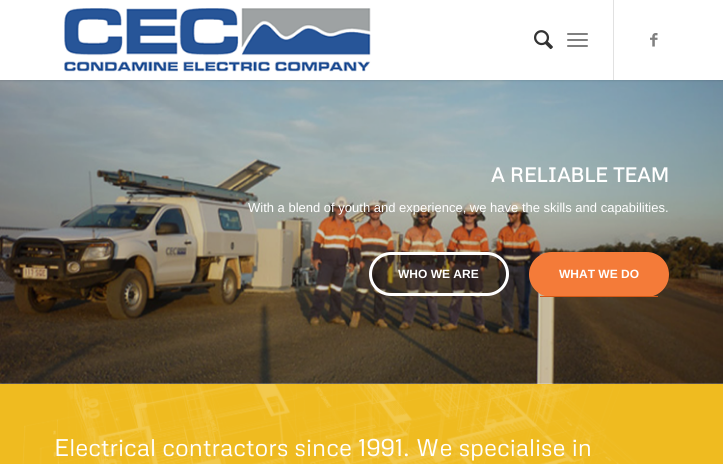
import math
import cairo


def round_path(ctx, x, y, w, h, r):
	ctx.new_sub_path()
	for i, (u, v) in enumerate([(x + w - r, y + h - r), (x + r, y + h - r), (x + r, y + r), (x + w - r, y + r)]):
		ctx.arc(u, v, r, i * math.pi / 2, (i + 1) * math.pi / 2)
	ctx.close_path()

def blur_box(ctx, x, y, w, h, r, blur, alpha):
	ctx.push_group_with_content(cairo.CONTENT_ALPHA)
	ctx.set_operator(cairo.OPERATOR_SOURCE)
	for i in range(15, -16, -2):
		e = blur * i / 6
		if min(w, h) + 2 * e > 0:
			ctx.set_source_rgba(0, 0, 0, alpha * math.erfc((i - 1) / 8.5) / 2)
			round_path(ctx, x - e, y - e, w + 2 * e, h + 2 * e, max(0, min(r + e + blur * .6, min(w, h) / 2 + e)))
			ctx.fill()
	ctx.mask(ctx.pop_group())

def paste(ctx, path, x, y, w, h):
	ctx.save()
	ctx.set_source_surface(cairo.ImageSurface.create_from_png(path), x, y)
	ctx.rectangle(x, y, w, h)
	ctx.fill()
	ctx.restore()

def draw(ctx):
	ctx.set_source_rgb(1, 1, 1)
	ctx.paint()
	paste(ctx, 'media/4.png', 0, 80, 723, 304)
	ctx.set_source_rgb(0, 0, 0)
	blur_box(ctx, -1, -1, 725, 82, 0, 1, 0.1)
	ctx.set_source_rgb(1, 1, 1)
	ctx.rectangle(0, 0, 723, 80)
	ctx.fill()
	paste(ctx, 'media/1.png', 64, 8, 307, 64)
	ctx.set_source_rgb(0.882, 0.882, 0.882)
	ctx.rectangle(613, 0, 1, 80)
	ctx.fill()
	paste(ctx, 'media/2.png', 534, 30, 19, 20)
	ctx.set_source_rgb(0.502, 0.502, 0.502)
	round_path(ctx, 567, 39, 21, 2, 1)
	ctx.fill()
	round_path(ctx, 567, 33, 21, 2, 1)
	ctx.fill()
	round_path(ctx, 567, 45, 21, 2, 1)
	ctx.fill()
	paste(ctx, 'media/3.png', 650, 33, 8, 14)
	ctx.select_font_face('Metrophobic', cairo.FONT_SLANT_NORMAL, cairo.FONT_WEIGHT_BOLD)
	ctx.set_font_size(20)
	ctx.set_source_rgb(1, 1, 1)
	ctx.move_to(491, 182)
	ctx.show_text('A RELIABLE TEAM')
	ctx.select_font_face('Liberation Sans')
	ctx.set_font_size(13)
	ctx.move_to(248, 212)
	ctx.show_text('With a blend of youth and experience, we have the skills and capabilities.')
	ctx.set_source_rgba(0, 0, 0, 0.2)
	round_path(ctx, 370.5, 253.5, 137, 41, 20.5)
	ctx.fill_preserve()
	ctx.set_source_rgb(1, 1, 1)
	ctx.set_line_width(3)
	ctx.stroke()
	ctx.select_font_face('Liberation Sans', cairo.FONT_SLANT_NORMAL, cairo.FONT_WEIGHT_BOLD)
	ctx.set_font_size(12)
	ctx.move_to(398, 278)
	ctx.show_text('WHO WE ARE')
	ctx.set_source_rgb(0.957, 0.482, 0.224)
	round_path(ctx, 529, 252, 140, 45, 22.5)
	ctx.fill()
	ctx.set_source_rgb(0.824, 0.349, 0.09)
	ctx.rectangle(540, 296, 118, 1)
	ctx.fill()
	ctx.set_source_rgb(1, 1, 1)
	ctx.move_to(559, 278)
	ctx.show_text('WHAT WE DO')
	ctx.set_source_rgb(0.937, 0.733, 0.125)
	ctx.rectangle(0, 384, 723, 80)
	ctx.fill()
	paste(ctx, 'media/5.png', 22, 384, 615, 80)
	ctx.select_font_face('Metrophobic')
	ctx.set_font_size(24)
	ctx.set_source_rgb(1, 1, 1)
	ctx.move_to(54, 456)
	ctx.show_text('Electrical contractors since 1991. We specialise in')


surface = cairo.ImageSurface(cairo.FORMAT_RGB24, 723, 464)
ctx = cairo.Context(surface)
options = cairo.FontOptions()
options.set_hint_metrics(cairo.HINT_METRICS_OFF)
options.set_hint_style(cairo.HINT_STYLE_NONE)
ctx.set_font_options(options)
ctx.set_miter_limit(4)
draw(ctx)
surface.write_to_png('image.png')
